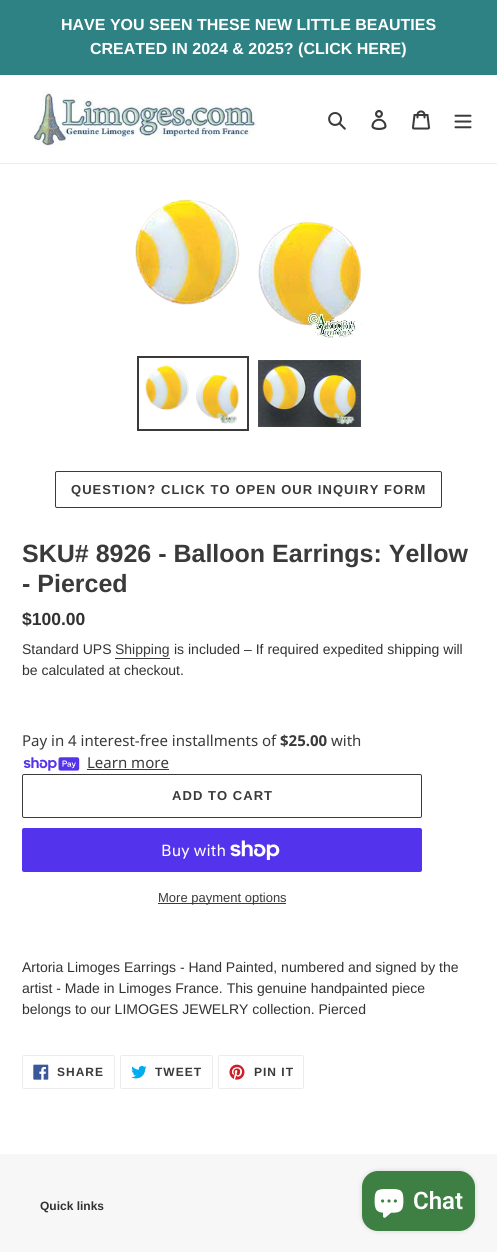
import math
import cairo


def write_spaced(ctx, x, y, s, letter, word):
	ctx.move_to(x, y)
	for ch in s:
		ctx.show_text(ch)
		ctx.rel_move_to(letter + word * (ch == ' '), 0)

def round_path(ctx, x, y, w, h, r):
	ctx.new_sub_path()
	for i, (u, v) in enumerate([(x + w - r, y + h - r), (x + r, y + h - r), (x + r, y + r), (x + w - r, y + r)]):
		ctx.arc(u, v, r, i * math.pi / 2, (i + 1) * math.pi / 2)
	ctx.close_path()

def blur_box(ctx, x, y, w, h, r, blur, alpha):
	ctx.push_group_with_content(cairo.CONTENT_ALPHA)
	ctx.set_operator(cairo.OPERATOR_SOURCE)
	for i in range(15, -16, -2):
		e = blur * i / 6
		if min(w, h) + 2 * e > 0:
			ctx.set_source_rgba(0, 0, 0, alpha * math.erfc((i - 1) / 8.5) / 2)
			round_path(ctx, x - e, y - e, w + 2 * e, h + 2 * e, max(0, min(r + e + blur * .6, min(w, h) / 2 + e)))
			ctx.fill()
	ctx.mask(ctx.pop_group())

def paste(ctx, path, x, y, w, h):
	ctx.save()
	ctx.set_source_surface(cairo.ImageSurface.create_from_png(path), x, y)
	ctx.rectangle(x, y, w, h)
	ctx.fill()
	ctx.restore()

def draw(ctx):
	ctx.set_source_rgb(1, 1, 1)
	ctx.paint()
	ctx.set_source_rgb(0.184, 0.51, 0.518)
	ctx.rectangle(0, 0, 497, 75)
	ctx.fill()
	ctx.select_font_face('Liberation Sans', cairo.FONT_SLANT_NORMAL, cairo.FONT_WEIGHT_BOLD)
	ctx.set_font_size(16)
	ctx.set_source_rgb(1, 1, 1)
	ctx.move_to(61, 30)
	ctx.show_text('HAVE YOU SEEN THESE NEW LITTLE BEAUTIES')
	ctx.move_to(90, 54)
	ctx.show_text('CREATED IN 2024 & 2025? (CLICK HERE)')
	ctx.set_source_rgb(0.922, 0.922, 0.922)
	ctx.rectangle(0, 163, 497, 1)
	ctx.fill()
	paste(ctx, 'media/1.png', 32, 90, 225, 58)
	paste(ctx, 'media/2.png', 328, 112, 18, 18)
	paste(ctx, 'media/3.png', 371, 110, 16, 20)
	paste(ctx, 'media/4.png', 412, 110, 18, 20)
	paste(ctx, 'media/5.png', 454, 114, 18, 15)
	paste(ctx, 'media/6.png', 135, 199, 227, 139)
	ctx.rectangle(138, 357, 110, 73)
	ctx.set_source_rgb(0.227, 0.227, 0.227)
	ctx.stroke()
	paste(ctx, 'media/7.png', 145, 365, 95, 59)
	paste(ctx, 'media/8.png', 258, 360, 103, 67)
	round_path(ctx, 55.5, 471.5, 386, 36, 1.5)
	ctx.set_line_width(1)
	ctx.stroke()
	ctx.set_font_size(13)
	write_spaced(ctx, 71, 494, 'QUESTION? CLICK TO OPEN OUR INQUIRY FORM', 1.05, 0)
	ctx.set_font_size(25)
	ctx.move_to(22, 562)
	ctx.show_text('SKU# 8926 - Balloon Earrings: Yellow')
	ctx.move_to(22, 592)
	ctx.show_text('- Pierced')
	ctx.set_font_size(17.5)
	ctx.set_source_rgb(0.2, 0.196, 0.196)
	ctx.move_to(22, 625)
	ctx.show_text('$100.00')
	ctx.select_font_face('Liberation Sans')
	ctx.set_font_size(14)
	ctx.move_to(22, 654)
	ctx.show_text('Standard UPS')
	ctx.set_source_rgb(0.227, 0.227, 0.227)
	ctx.move_to(115, 654)
	ctx.show_text('Shipping')
	ctx.rectangle(115, 658, 55, 1)
	ctx.fill()
	ctx.set_source_rgb(0.2, 0.196, 0.196)
	ctx.move_to(174, 654)
	ctx.show_text('is included – If required expedited shipping will')
	ctx.move_to(22, 675)
	ctx.show_text('be calculated at checkout.')
	ctx.select_font_face('Noto Sans')
	ctx.set_font_size(15)
	ctx.set_source_rgb(0.227, 0.227, 0.227)
	ctx.move_to(22, 746)
	ctx.show_text('Pay in 4 interest-free installments of')
	ctx.select_font_face('Noto Sans', cairo.FONT_SLANT_NORMAL, cairo.FONT_WEIGHT_BOLD)
	ctx.move_to(280, 746)
	ctx.show_text('$25.00')
	ctx.select_font_face('Noto Sans')
	ctx.move_to(331, 746)
	ctx.show_text('with')
	paste(ctx, 'media/9.png', 23, 757, 57, 14)
	ctx.move_to(87, 768)
	ctx.show_text('Learn more')
	ctx.rectangle(87, 769, 82, 1)
	ctx.fill()
	round_path(ctx, 22.5, 774.5, 399, 43, 1.5)
	ctx.stroke()
	ctx.select_font_face('Liberation Sans', cairo.FONT_SLANT_NORMAL, cairo.FONT_WEIGHT_BOLD)
	ctx.set_font_size(13)
	write_spaced(ctx, 172, 800, 'ADD TO CART', 1.05, 0)
	ctx.set_source_rgb(0.329, 0.2, 0.922)
	round_path(ctx, 22, 828, 400, 44, 2)
	ctx.fill()
	ctx.select_font_face('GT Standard')
	ctx.set_font_size(16)
	ctx.set_source_rgb(1, 1, 1)
	ctx.move_to(161, 856)
	ctx.show_text('Buy with')
	paste(ctx, 'media/10.png', 230, 840, 50, 20)
	ctx.set_source_rgb(0.227, 0.227, 0.227)
	ctx.rectangle(158, 903, 128, 1)
	ctx.fill()
	ctx.select_font_face('Liberation Sans')
	ctx.set_font_size(13)
	ctx.move_to(158, 902)
	ctx.show_text('More payment options')
	ctx.set_font_size(14)
	ctx.set_source_rgb(0.2, 0.196, 0.196)
	for x, y, s in [
		(22, 972, 'Artoria Limoges Earrings - Hand Painted, numbered and signed by the'),
		(22, 993, 'artist - Made in Limoges France. This genuine handpainted piece'),
		(22, 1014, 'belongs to our LIMOGES JEWELRY collection. Pierced'),
	]:
		ctx.move_to(x, y)
		ctx.show_text(s)
	round_path(ctx, 22.5, 1055.5, 92, 33, 1.5)
	ctx.set_source_rgb(0.922, 0.922, 0.922)
	ctx.stroke()
	paste(ctx, 'media/11.png', 33, 1064, 16, 16)
	ctx.select_font_face('Liberation Sans', cairo.FONT_SLANT_NORMAL, cairo.FONT_WEIGHT_BOLD)
	ctx.set_font_size(12)
	ctx.set_source_rgb(0.227, 0.227, 0.227)
	write_spaced(ctx, 57, 1076, 'SHARE', 1, 0)
	round_path(ctx, 120.5, 1055.5, 92, 33, 1.5)
	ctx.set_source_rgb(0.922, 0.922, 0.922)
	ctx.stroke()
	paste(ctx, 'media/12.png', 131, 1065, 16, 14)
	ctx.set_source_rgb(0.227, 0.227, 0.227)
	write_spaced(ctx, 155, 1076, 'TWEET', 1, 0)
	round_path(ctx, 218.5, 1055.5, 85, 33, 1.5)
	ctx.set_source_rgb(0.922, 0.922, 0.922)
	ctx.stroke()
	paste(ctx, 'media/13.png', 229, 1064, 16, 16)
	ctx.set_source_rgb(0.227, 0.227, 0.227)
	write_spaced(ctx, 254, 1076, 'PIN IT', 1, 0)
	ctx.set_source_rgb(0.965, 0.965, 0.965)
	ctx.rectangle(0, 1154, 497, 98)
	ctx.fill()
	ctx.set_source_rgb(0.2, 0.196, 0.196)
	ctx.move_to(40, 1210)
	ctx.show_text('Quick links')
	ctx.set_source_rgb(0, 0, 0)
	blur_box(ctx, 362, 1171, 113, 60, 16, 2.5, 0.15)
	ctx.set_source_rgb(0.243, 0.502, 0.267)
	round_path(ctx, 362, 1171, 113, 60, 16)
	ctx.fill()
	paste(ctx, 'media/14.png', 374, 1189, 30, 29)
	ctx.select_font_face('Roboto SemiBold')
	ctx.set_font_size(24)
	ctx.set_source_rgb(1, 1, 1)
	ctx.move_to(413, 1209)
	ctx.show_text('Chat')


surface = cairo.ImageSurface(cairo.FORMAT_RGB24, 497, 1252)
ctx = cairo.Context(surface)
options = cairo.FontOptions()
options.set_hint_metrics(cairo.HINT_METRICS_OFF)
options.set_hint_style(cairo.HINT_STYLE_NONE)
ctx.set_font_options(options)
ctx.set_miter_limit(4)
draw(ctx)
surface.write_to_png('image.png')
